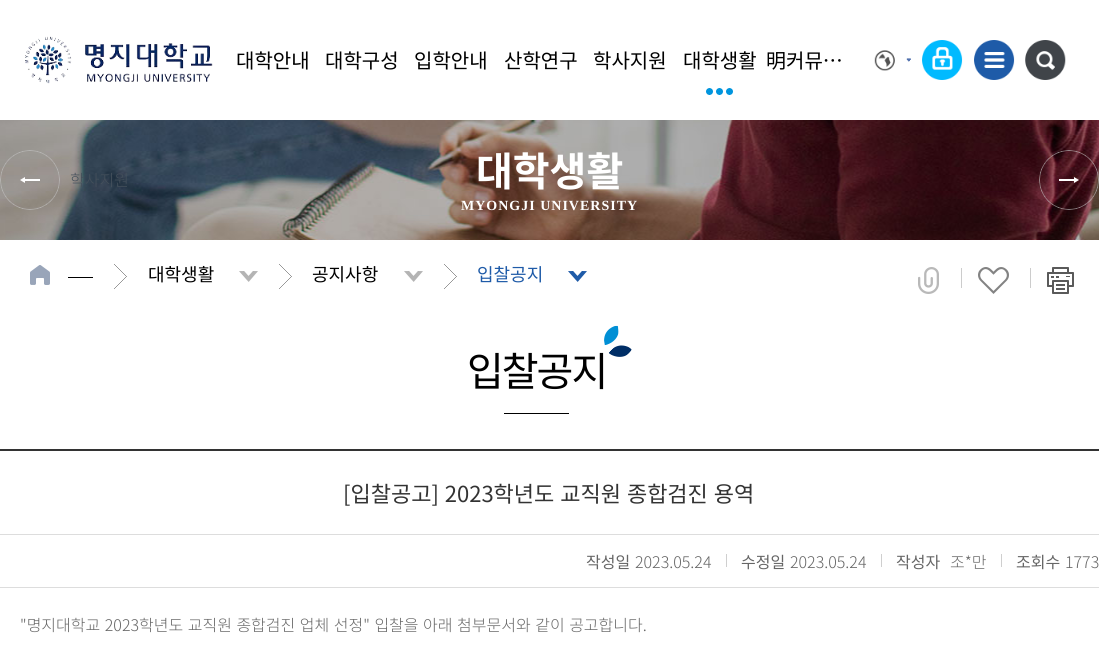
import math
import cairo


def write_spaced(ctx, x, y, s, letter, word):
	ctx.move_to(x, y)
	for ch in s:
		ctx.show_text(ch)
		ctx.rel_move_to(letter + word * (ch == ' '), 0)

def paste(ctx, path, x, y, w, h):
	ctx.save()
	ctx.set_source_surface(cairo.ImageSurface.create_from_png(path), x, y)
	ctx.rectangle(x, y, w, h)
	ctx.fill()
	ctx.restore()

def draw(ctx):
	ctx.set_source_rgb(1, 1, 1)
	ctx.paint()
	paste(ctx, 'media/1.png', 25, 36, 188, 48)
	ctx.select_font_face('Noto Sans KR Thin')
	ctx.set_font_size(20)
	ctx.set_source_rgb(0, 0, 0)
	for x, y, s in [
		(236, 68, '대학안내'),
		(325, 68, '대학구성'),
		(414, 68, '입학안내'),
		(504, 68, '산학연구'),
		(593, 68, '학사지원'),
		(683, 68, '대학생활'),
	]:
		ctx.move_to(x, y)
		ctx.show_text(s)
	paste(ctx, 'media/2.png', 706, 88, 27, 7)
	ctx.move_to(766, 68)
	ctx.show_text('明커뮤…')
	paste(ctx, 'media/3.png', 874, 50, 21, 21)
	paste(ctx, 'media/4.png', 906, 58, 5, 4)
	paste(ctx, 'media/5.png', 922, 40, 41, 40)
	paste(ctx, 'media/6.png', 974, 40, 41, 40)
	paste(ctx, 'media/7.png', 1025, 40, 41, 40)
	paste(ctx, 'media/8.png', 0, 120, 1099, 120)
	paste(ctx, 'media/9.png', 0, 150, 60, 60)
	ctx.select_font_face('Noto Sans KR Light')
	ctx.set_font_size(16)
	ctx.set_source_rgb(0.267, 0.314, 0.357)
	ctx.move_to(70, 186)
	ctx.show_text('학사지원')
	ctx.select_font_face('Noto Sans KR', cairo.FONT_SLANT_NORMAL, cairo.FONT_WEIGHT_BOLD)
	ctx.set_font_size(40)
	ctx.set_source_rgb(1, 1, 1)
	ctx.move_to(476, 186)
	ctx.show_text('대학생활')
	ctx.select_font_face('Liberation Serif', cairo.FONT_SLANT_NORMAL, cairo.FONT_WEIGHT_BOLD)
	ctx.set_font_size(14)
	write_spaced(ctx, 461, 210, 'MYONGJI UNIVERSITY', 1, 0)
	paste(ctx, 'media/10.png', 1039, 150, 60, 60)
	paste(ctx, 'media/11.png', 30, 265, 63, 20)
	paste(ctx, 'media/12.png', 114, 264, 13, 25)
	ctx.select_font_face('Noto Sans KR Thin')
	ctx.set_font_size(18)
	ctx.set_source_rgb(0, 0, 0)
	ctx.move_to(148, 281)
	ctx.show_text('대학생활')
	paste(ctx, 'media/13.png', 239, 271, 19, 11)
	paste(ctx, 'media/12.png', 279, 264, 13, 25)
	ctx.move_to(312, 281)
	ctx.show_text('공지사항')
	paste(ctx, 'media/13.png', 404, 271, 19, 11)
	paste(ctx, 'media/12.png', 444, 264, 13, 25)
	ctx.set_source_rgb(0.122, 0.357, 0.659)
	ctx.move_to(477, 281)
	ctx.show_text('입찰공지')
	paste(ctx, 'media/14.png', 568, 271, 19, 11)
	paste(ctx, 'media/15.png', 918, 267, 21, 27)
	ctx.set_source_rgb(0.8, 0.8, 0.8)
	ctx.rectangle(961, 268, 1, 20)
	ctx.fill()
	paste(ctx, 'media/16.png', 978, 267, 31, 27)
	ctx.rectangle(1030, 268, 1, 20)
	ctx.fill()
	paste(ctx, 'media/17.png', 1047, 267, 27, 27)
	paste(ctx, 'media/18.png', 604, 325, 28, 32)
	ctx.set_font_size(40)
	ctx.set_source_rgb(0, 0, 0)
	write_spaced(ctx, 467, 386, '입찰공지', -2, 0)
	ctx.rectangle(504, 413, 65, 1)
	ctx.fill()
	ctx.set_source_rgb(0.2, 0.2, 0.2)
	ctx.rectangle(0, 449, 1099, 2)
	ctx.fill()
	ctx.set_font_size(22)
	write_spaced(ctx, 343, 502, '[입찰공고] 2023학년도 교직원 종합검진 용역', 0, 1)
	ctx.set_source_rgb(0.867, 0.867, 0.867)
	ctx.rectangle(0, 534, 1099, 1)
	ctx.fill()
	ctx.rectangle(0, 587, 1099, 1)
	ctx.fill()
	ctx.set_font_size(16)
	ctx.set_source_rgb(0.4, 0.4, 0.4)
	ctx.move_to(586, 568)
	ctx.show_text('작성일')
	ctx.select_font_face('Noto Sans KR Light')
	ctx.move_to(635, 568)
	ctx.show_text('2023.05.24')
	ctx.set_source_rgb(0.812, 0.812, 0.812)
	ctx.rectangle(726, 554, 1, 13)
	ctx.fill()
	ctx.select_font_face('Noto Sans KR Thin')
	ctx.set_source_rgb(0.4, 0.4, 0.4)
	ctx.move_to(741, 568)
	ctx.show_text('수정일')
	ctx.select_font_face('Noto Sans KR Light')
	ctx.move_to(790, 568)
	ctx.show_text('2023.05.24')
	ctx.set_source_rgb(0.812, 0.812, 0.812)
	ctx.rectangle(881, 554, 1, 13)
	ctx.fill()
	ctx.select_font_face('Noto Sans KR Thin')
	ctx.set_source_rgb(0.4, 0.4, 0.4)
	ctx.move_to(896, 568)
	ctx.show_text('작성자')
	ctx.select_font_face('Noto Sans KR Light')
	ctx.move_to(950, 568)
	ctx.show_text('조*만')
	ctx.set_source_rgb(0.812, 0.812, 0.812)
	ctx.rectangle(1001, 554, 1, 13)
	ctx.fill()
	ctx.select_font_face('Noto Sans KR Thin')
	ctx.set_source_rgb(0.4, 0.4, 0.4)
	ctx.move_to(1016, 568)
	ctx.show_text('조회수')
	ctx.select_font_face('Noto Sans KR Light')
	ctx.move_to(1065, 568)
	ctx.show_text('1773')
	write_spaced(ctx, 20, 631, '"명지대학교 2023학년도 교직원 종합검진 업체 선정" 입찰을 아래 첨부문서와 같이 공고합니다.', 0, 1)


surface = cairo.ImageSurface(cairo.FORMAT_RGB24, 1099, 648)
ctx = cairo.Context(surface)
options = cairo.FontOptions()
options.set_hint_metrics(cairo.HINT_METRICS_OFF)
options.set_hint_style(cairo.HINT_STYLE_NONE)
ctx.set_font_options(options)
ctx.set_miter_limit(4)
draw(ctx)
surface.write_to_png('image.png')
